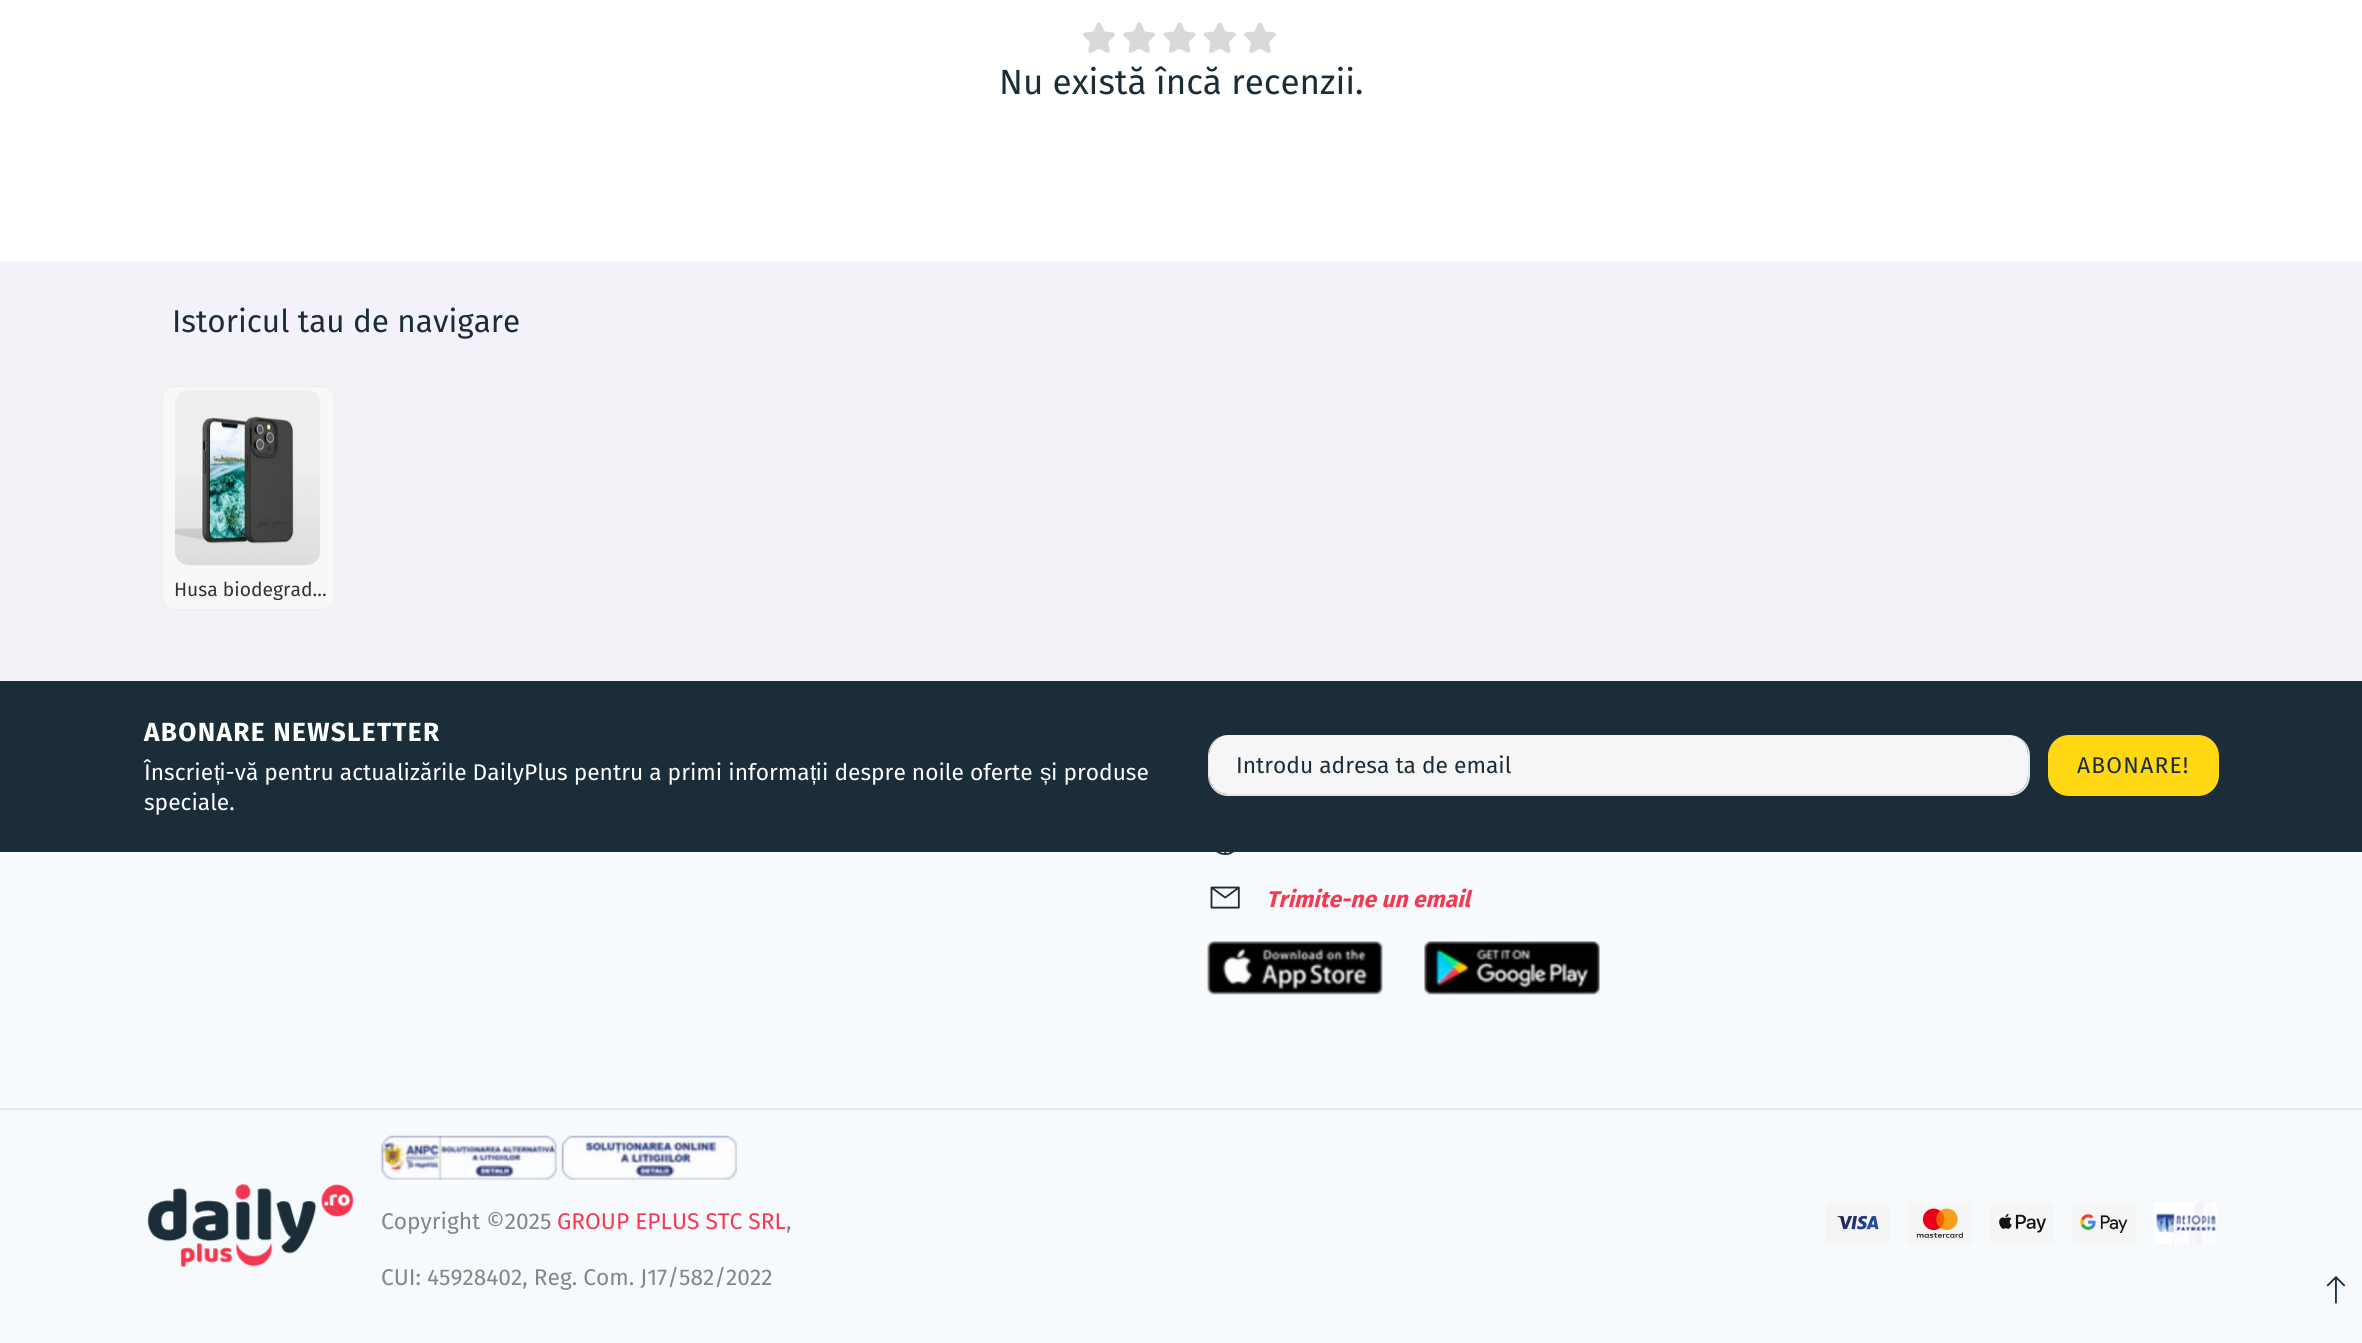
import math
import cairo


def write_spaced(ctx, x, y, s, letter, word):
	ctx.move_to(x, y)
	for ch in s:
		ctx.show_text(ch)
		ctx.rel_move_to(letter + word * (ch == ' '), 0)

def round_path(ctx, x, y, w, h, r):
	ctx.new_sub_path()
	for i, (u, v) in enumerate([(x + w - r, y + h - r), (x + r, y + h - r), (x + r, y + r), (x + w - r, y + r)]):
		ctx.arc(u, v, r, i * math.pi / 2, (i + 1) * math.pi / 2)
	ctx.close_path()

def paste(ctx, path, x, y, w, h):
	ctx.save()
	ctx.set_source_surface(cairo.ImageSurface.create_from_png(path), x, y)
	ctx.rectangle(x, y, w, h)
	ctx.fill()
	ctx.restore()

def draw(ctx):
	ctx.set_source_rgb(0.961, 0.98, 0.992)
	ctx.paint()
	ctx.set_source_rgb(1, 1, 1)
	ctx.rectangle(0, 0, 2362, 261)
	ctx.fill()
	paste(ctx, 'media/1.png', 1083, 22, 32, 31)
	paste(ctx, 'media/2.png', 1123, 22, 33, 31)
	paste(ctx, 'media/3.png', 1163, 22, 33, 31)
	paste(ctx, 'media/4.png', 1203, 22, 33, 31)
	paste(ctx, 'media/1.png', 1244, 22, 32, 31)
	ctx.select_font_face('Fira Sans')
	ctx.set_font_size(35)
	ctx.set_source_rgb(0.106, 0.176, 0.224)
	ctx.move_to(999, 94)
	ctx.show_text('Nu există încă recenzii.')
	ctx.set_source_rgb(0.949, 0.949, 0.969)
	ctx.rectangle(0, 261, 2362, 420)
	ctx.fill()
	ctx.set_font_size(31.5)
	ctx.set_source_rgb(0.106, 0.176, 0.224)
	ctx.move_to(172, 332)
	ctx.show_text('Istoricul tau de navigare')
	ctx.set_source_rgb(0.969, 0.969, 0.969)
	round_path(ctx, 162, 386, 173, 224, 13)
	ctx.fill_preserve()
	ctx.set_source_rgb(0.941, 0.941, 0.941)
	ctx.stroke()
	paste(ctx, 'media/5.png', 175, 390, 145, 176)
	ctx.set_font_size(19.25)
	ctx.set_source_rgb(0.2, 0.2, 0.2)
	ctx.move_to(174, 596)
	ctx.show_text('Husa biodegrad…')
	ctx.set_source_rgb(0.106, 0.176, 0.224)
	ctx.rectangle(0, 681, 2362, 171)
	ctx.fill()
	ctx.select_font_face('Fira Sans', cairo.FONT_SLANT_NORMAL, cairo.FONT_WEIGHT_BOLD)
	ctx.set_font_size(26.25)
	ctx.set_source_rgb(1, 1, 1)
	write_spaced(ctx, 144, 741, 'ABONARE NEWSLETTER', 1.3, 0)
	ctx.select_font_face('Fira Sans')
	ctx.set_font_size(22.75)
	ctx.move_to(144, 780)
	ctx.show_text('Înscrie i-vă pentru actualizările DailyPlus pentru a primi informa ii despre noile oferte')
	ctx.move_to(1051, 780)
	ctx.show_text('i produse')
	ctx.select_font_face('Liberation Sans')
	for x, y, s in [
		(214, 780, 'ț'),
		(810, 780, 'ț'),
		(1040, 780, 'ș'),
	]:
		ctx.move_to(x, y)
		ctx.show_text(s)
	ctx.select_font_face('Fira Sans')
	ctx.move_to(144, 810)
	ctx.show_text('speciale.')
	ctx.set_source_rgb(0.961, 0.961, 0.961)
	ctx.new_path()
	ctx.move_to(1228, 735)
	ctx.line_to(2009, 735)
	ctx.curve_to(2020, 735, 2028, 744, 2028, 756)
	ctx.line_to(2028, 775)
	ctx.curve_to(2028, 786, 2020, 794, 2009, 794)
	ctx.line_to(1228, 794)
	ctx.curve_to(1218, 794, 1209, 786, 1209, 775)
	ctx.line_to(1209, 756)
	ctx.curve_to(1209, 744, 1218, 735, 1228, 735)
	ctx.close_path()
	ctx.fill()
	ctx.set_source_rgb(0.898, 0.898, 0.898)
	ctx.set_fill_rule(cairo.FILL_RULE_EVEN_ODD)
	ctx.new_path()
	ctx.move_to(1228, 735)
	ctx.line_to(2009, 735)
	ctx.curve_to(2021, 735, 2030, 744, 2030, 756)
	ctx.line_to(2030, 775)
	ctx.curve_to(2030, 787, 2021, 796, 2009, 796)
	ctx.line_to(1228, 796)
	ctx.curve_to(1217, 796, 1208, 787, 1208, 775)
	ctx.line_to(1208, 756)
	ctx.curve_to(1208, 744, 1217, 735, 1228, 735)
	ctx.close_path()
	ctx.move_to(1228, 735)
	ctx.line_to(2009, 735)
	ctx.curve_to(2020, 735, 2028, 744, 2028, 756)
	ctx.line_to(2028, 775)
	ctx.curve_to(2028, 786, 2020, 794, 2009, 794)
	ctx.line_to(1228, 794)
	ctx.curve_to(1218, 794, 1209, 786, 1209, 775)
	ctx.line_to(1209, 756)
	ctx.curve_to(1209, 744, 1218, 735, 1228, 735)
	ctx.close_path()
	ctx.fill()
	ctx.set_source_rgb(0.106, 0.176, 0.224)
	ctx.move_to(1236, 773)
	ctx.show_text('Introdu adresa ta de email')
	ctx.set_source_rgb(1, 0.847, 0.078)
	round_path(ctx, 2049, 736, 169, 59, 20)
	ctx.fill_preserve()
	ctx.stroke()
	ctx.set_source_rgb(0.106, 0.176, 0.224)
	write_spaced(ctx, 2077, 773, 'ABONARE!', 1.25, 0)
	paste(ctx, 'media/6.png', 1216, 852, 18, 3)
	paste(ctx, 'media/7.png', 1210, 886, 30, 23)
	ctx.select_font_face('Fira Sans', cairo.FONT_SLANT_ITALIC, cairo.FONT_WEIGHT_BOLD)
	ctx.set_source_rgb(0.961, 0.22, 0.314)
	ctx.move_to(1266, 907)
	ctx.show_text('Trimite-ne un email')
	paste(ctx, 'media/8.png', 1207, 941, 176, 54)
	paste(ctx, 'media/9.png', 1424, 941, 176, 54)
	ctx.set_source_rgb(0.898, 0.898, 0.898)
	ctx.rectangle(0, 1108, 2362, 2)
	ctx.fill()
	paste(ctx, 'media/10.png', 147, 1184, 207, 84)
	paste(ctx, 'media/11.png', 380, 1135, 177, 45)
	paste(ctx, 'media/12.png', 561, 1135, 176, 45)
	ctx.select_font_face('Fira Sans')
	ctx.set_source_rgb(0.522, 0.522, 0.522)
	ctx.move_to(381, 1229)
	ctx.show_text('Copyright ©2025')
	ctx.set_source_rgb(0.961, 0.22, 0.314)
	ctx.move_to(557, 1229)
	ctx.show_text('GROUP EPLUS STC SRL')
	ctx.set_source_rgb(0.522, 0.522, 0.522)
	ctx.move_to(786, 1229)
	ctx.show_text(',')
	ctx.move_to(381, 1285)
	ctx.show_text('CUI: 45928402, Reg. Com. J17/582/2022')
	paste(ctx, 'media/13.png', 1825, 1202, 65, 42)
	paste(ctx, 'media/14.png', 1908, 1202, 64, 42)
	paste(ctx, 'media/15.png', 1990, 1202, 64, 42)
	paste(ctx, 'media/16.png', 2072, 1202, 65, 42)
	paste(ctx, 'media/17.png', 2154, 1202, 63, 42)
	paste(ctx, 'media/18.png', 2326, 1276, 19, 28)


surface = cairo.ImageSurface(cairo.FORMAT_RGB24, 2362, 1343)
ctx = cairo.Context(surface)
options = cairo.FontOptions()
options.set_hint_metrics(cairo.HINT_METRICS_OFF)
options.set_hint_style(cairo.HINT_STYLE_NONE)
ctx.set_font_options(options)
ctx.set_miter_limit(4)
draw(ctx)
surface.write_to_png('image.png')
